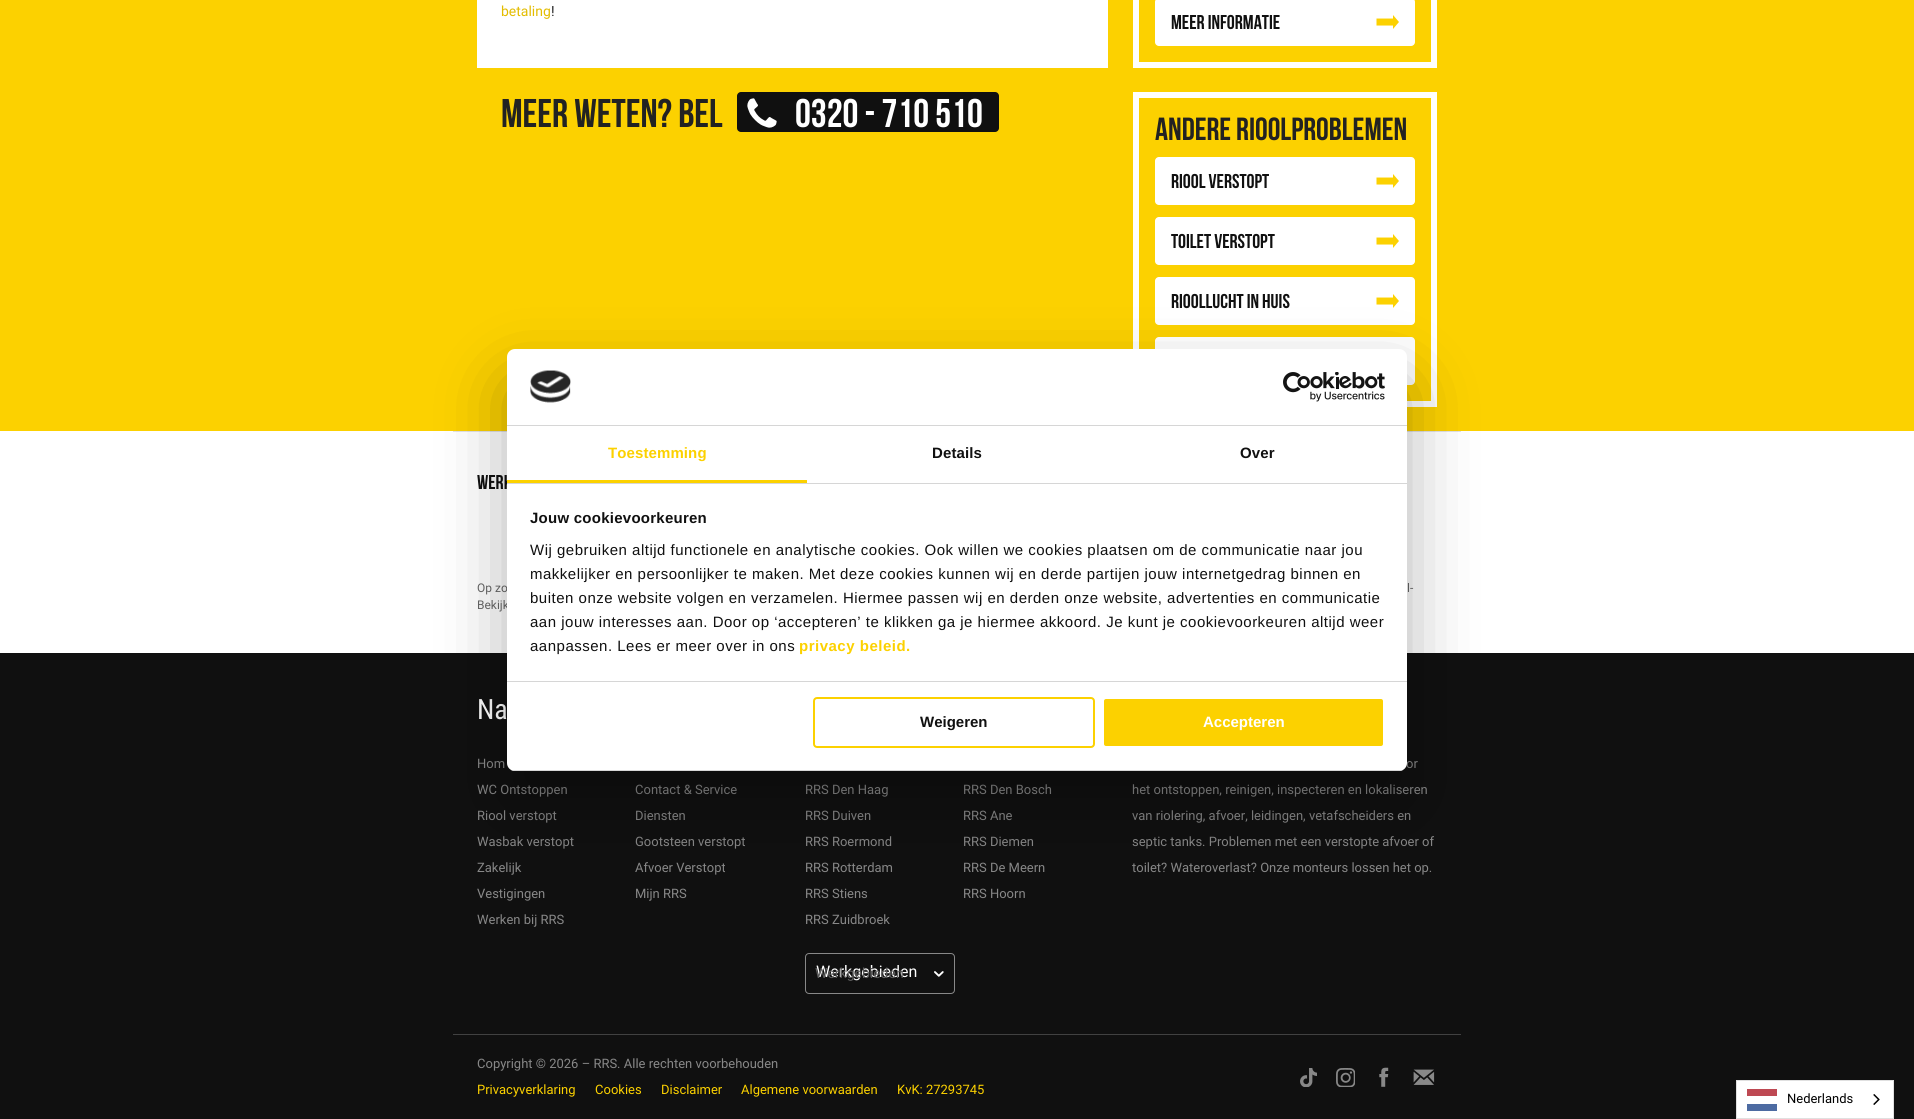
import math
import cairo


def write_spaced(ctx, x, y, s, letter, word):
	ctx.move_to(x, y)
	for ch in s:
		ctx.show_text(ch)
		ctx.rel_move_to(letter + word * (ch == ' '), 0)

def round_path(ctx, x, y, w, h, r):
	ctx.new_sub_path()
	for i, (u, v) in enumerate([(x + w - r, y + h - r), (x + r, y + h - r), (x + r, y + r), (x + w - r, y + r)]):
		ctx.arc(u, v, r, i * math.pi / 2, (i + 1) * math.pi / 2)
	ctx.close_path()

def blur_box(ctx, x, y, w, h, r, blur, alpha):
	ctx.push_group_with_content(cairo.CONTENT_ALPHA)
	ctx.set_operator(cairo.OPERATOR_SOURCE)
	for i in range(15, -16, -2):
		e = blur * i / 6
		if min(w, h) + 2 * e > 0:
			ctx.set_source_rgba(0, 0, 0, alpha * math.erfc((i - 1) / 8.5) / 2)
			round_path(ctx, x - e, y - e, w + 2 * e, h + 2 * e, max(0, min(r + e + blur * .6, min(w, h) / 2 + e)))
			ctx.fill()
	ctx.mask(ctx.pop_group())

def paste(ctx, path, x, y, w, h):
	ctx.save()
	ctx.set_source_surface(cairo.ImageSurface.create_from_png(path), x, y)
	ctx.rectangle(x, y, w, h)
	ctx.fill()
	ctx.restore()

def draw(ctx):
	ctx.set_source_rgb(0.988, 0.82, 0)
	ctx.paint()
	ctx.set_source_rgb(1, 1, 1)
	ctx.rectangle(477, 0, 631, 68)
	ctx.fill()
	ctx.select_font_face('Roboto')
	ctx.set_font_size(14)
	ctx.set_source_rgb(0.89, 0.737, 0)
	ctx.move_to(501, 16)
	ctx.show_text('betaling')
	ctx.set_source_rgb(0.133, 0.133, 0.133)
	ctx.move_to(551, 16)
	ctx.show_text('!')
	ctx.select_font_face('Bebas Neue')
	ctx.set_font_size(40)
	ctx.move_to(501, 127)
	ctx.show_text('Meer weten? Bel')
	ctx.set_source_rgb(0.063, 0.063, 0.063)
	round_path(ctx, 737, 92, 262, 40, 4)
	ctx.fill()
	paste(ctx, 'media/1.png', 747, 98, 30, 30)
	ctx.set_source_rgb(1, 1, 1)
	ctx.move_to(795, 127)
	ctx.show_text('0320 - 710 510')
	ctx.rectangle(1136, -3, 298, 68)
	ctx.set_line_width(6)
	ctx.stroke()
	round_path(ctx, 1155, -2, 260, 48, 4)
	ctx.fill()
	ctx.set_font_size(20)
	ctx.set_source_rgb(0.063, 0.063, 0.063)
	ctx.move_to(1171, 29)
	ctx.show_text('Meer informatie')
	ctx.set_source_rgb(0.988, 0.82, 0)
	ctx.new_path()
	ctx.move_to(1393, 15)
	ctx.line_to(1393, 18.5)
	ctx.line_to(1376.5, 18.5)
	ctx.line_to(1376.5, 25.5)
	ctx.line_to(1393, 25.5)
	ctx.line_to(1393, 29)
	ctx.line_to(1399, 22)
	ctx.close_path()
	ctx.fill()
	ctx.rectangle(1136, 95, 298, 309)
	ctx.set_source_rgb(1, 1, 1)
	ctx.stroke()
	ctx.set_font_size(32)
	ctx.set_source_rgb(0.133, 0.133, 0.133)
	ctx.move_to(1155, 140)
	ctx.show_text('Andere rioolproblemen')
	ctx.set_source_rgb(1, 1, 1)
	round_path(ctx, 1155, 157, 260, 48, 4)
	ctx.fill()
	ctx.set_font_size(20)
	ctx.set_source_rgb(0.063, 0.063, 0.063)
	ctx.move_to(1171, 188)
	ctx.show_text('Riool Verstopt')
	ctx.set_source_rgb(0.988, 0.82, 0)
	ctx.new_path()
	ctx.move_to(1393, 174)
	ctx.line_to(1393, 177.5)
	ctx.line_to(1376.5, 177.5)
	ctx.line_to(1376.5, 184.5)
	ctx.line_to(1393, 184.5)
	ctx.line_to(1393, 188)
	ctx.line_to(1399, 181)
	ctx.close_path()
	ctx.fill()
	ctx.set_source_rgb(1, 1, 1)
	round_path(ctx, 1155, 217, 260, 48, 4)
	ctx.fill()
	ctx.set_source_rgb(0.063, 0.063, 0.063)
	ctx.move_to(1171, 248)
	ctx.show_text('Toilet Verstopt')
	ctx.set_source_rgb(0.988, 0.82, 0)
	ctx.new_path()
	ctx.move_to(1393, 234)
	ctx.line_to(1393, 237.5)
	ctx.line_to(1376.5, 237.5)
	ctx.line_to(1376.5, 244.5)
	ctx.line_to(1393, 244.5)
	ctx.line_to(1393, 248)
	ctx.line_to(1399, 241)
	ctx.close_path()
	ctx.fill()
	ctx.set_source_rgb(1, 1, 1)
	round_path(ctx, 1155, 277, 260, 48, 4)
	ctx.fill()
	ctx.set_source_rgb(0.063, 0.063, 0.063)
	ctx.move_to(1171, 308)
	ctx.show_text('Rioollucht in huis')
	ctx.set_source_rgb(0.988, 0.82, 0)
	ctx.new_path()
	ctx.move_to(1393, 294)
	ctx.line_to(1393, 297.5)
	ctx.line_to(1376.5, 297.5)
	ctx.line_to(1376.5, 304.5)
	ctx.line_to(1393, 304.5)
	ctx.line_to(1393, 308)
	ctx.line_to(1399, 301)
	ctx.close_path()
	ctx.fill()
	ctx.set_source_rgb(1, 1, 1)
	round_path(ctx, 1155, 337, 260, 48, 4)
	ctx.fill()
	ctx.rectangle(0, 431, 1914, 222)
	ctx.fill()
	ctx.set_source_rgb(0.886, 0.886, 0.886)
	ctx.rectangle(453, 431, 1008, 1)
	ctx.fill()
	ctx.set_source_rgb(0.063, 0.063, 0.063)
	ctx.move_to(477, 489)
	ctx.show_text('WERK')
	ctx.select_font_face('Roboto')
	ctx.set_font_size(12)
	ctx.set_source_rgb(0.4, 0.4, 0.4)
	for x, y, s in [
		(477, 592, 'Op zo'),
		(477, 609, 'Bekijk'),
		(1407, 592, 'l-'),
	]:
		ctx.move_to(x, y)
		ctx.show_text(s)
	ctx.set_source_rgb(0.063, 0.063, 0.063)
	ctx.rectangle(0, 653, 1914, 466)
	ctx.fill()
	ctx.select_font_face('Roboto Condensed')
	ctx.set_font_size(28)
	ctx.set_source_rgb(1, 1, 1)
	ctx.move_to(477, 719)
	ctx.show_text('Na')
	ctx.select_font_face('Roboto')
	ctx.set_font_size(13)
	ctx.set_source_rgb(0.533, 0.533, 0.533)
	for x, y, s in [
		(477, 768, 'Hom'),
		(477, 794, 'WC Ontstoppen'),
		(635, 794, 'Contact & Service'),
		(477, 820, 'Riool verstopt'),
		(635, 820, 'Diensten'),
		(477, 846, 'Wasbak verstopt'),
		(635, 846, 'Gootsteen verstopt'),
		(477, 872, 'Zakelijk'),
		(635, 872, 'Afvoer Verstopt'),
		(477, 898, 'Vestigingen'),
		(635, 898, 'Mijn RRS'),
		(477, 924, 'Werken bij RRS'),
		(805, 794, 'RRS Den Haag'),
		(963, 794, 'RRS Den Bosch'),
		(805, 820, 'RRS Duiven'),
		(963, 820, 'RRS Ane'),
		(805, 846, 'RRS Roermond'),
		(963, 846, 'RRS Diemen'),
		(805, 872, 'RRS Rotterdam'),
		(963, 872, 'RRS De Meern'),
		(805, 898, 'RRS Stiens'),
		(963, 898, 'RRS Hoorn'),
		(805, 924, 'RRS Zuidbroek'),
	]:
		ctx.move_to(x, y)
		ctx.show_text(s)
	paste(ctx, 'media/2.png', 934, 971, 10, 6)
	round_path(ctx, 805.5, 953.5, 149, 40, 3.5)
	ctx.set_line_width(1)
	ctx.stroke()
	ctx.set_font_size(16)
	ctx.set_source_rgb(1, 1, 1)
	ctx.move_to(816, 977)
	ctx.show_text('Werkgebieden')
	ctx.set_font_size(14)
	ctx.set_source_rgb(0.365, 0.365, 0.365)
	ctx.move_to(815, 978)
	ctx.show_text('Werkgebieden')
	ctx.set_font_size(13)
	ctx.set_source_rgb(0.533, 0.533, 0.533)
	for x, y, s in [
		(1406, 768, 'or'),
		(1132, 794, 'het ontstoppen, reinigen, inspecteren en lokaliseren'),
		(1132, 820, 'van riolering, afvoer, leidingen, vetafscheiders en'),
		(1132, 846, 'septic tanks. Problemen met een verstopte afvoer of'),
		(1132, 872, 'toilet? Wateroverlast? Onze monteurs lossen het op.'),
	]:
		ctx.move_to(x, y)
		ctx.show_text(s)
	ctx.set_source_rgb(0.255, 0.255, 0.255)
	ctx.rectangle(453, 1034, 1008, 1)
	ctx.fill()
	ctx.set_source_rgb(0.533, 0.533, 0.533)
	ctx.move_to(477, 1068)
	ctx.show_text('Copyright © 2026 – RRS. Alle rechten voorbehouden')
	ctx.set_source_rgb(0.988, 0.82, 0)
	for x, y, s in [
		(477, 1094, 'Privacyverklaring'),
		(595, 1094, 'Cookies'),
		(661, 1094, 'Disclaimer'),
		(741, 1094, 'Algemene voorwaarden'),
		(897, 1094, 'KvK: 27293745'),
	]:
		ctx.move_to(x, y)
		ctx.show_text(s)
	paste(ctx, 'media/3.png', 1300, 1068, 17, 19)
	paste(ctx, 'media/4.png', 1336, 1068, 19, 19)
	paste(ctx, 'media/5.png', 1379, 1067, 10, 20)
	paste(ctx, 'media/6.png', 1413, 1069, 22, 16)
	ctx.set_source_rgb(0, 0, 0)
	blur_box(ctx, 507, 381, 900, 422, 8, 34, 0.3)
	ctx.set_source_rgb(1, 1, 1)
	round_path(ctx, 507, 349, 900, 422, 8)
	ctx.fill()
	ctx.set_source_rgb(0.839, 0.839, 0.839)
	ctx.rectangle(507, 425, 900, 1)
	ctx.fill()
	paste(ctx, 'media/7.png', 530, 370, 41, 33)
	paste(ctx, 'media/8.png', 1283, 372, 102, 30)
	ctx.rectangle(507, 483, 900, 1)
	ctx.fill()
	ctx.set_source_rgb(0.988, 0.82, 0)
	ctx.rectangle(507, 480, 300, 3)
	ctx.fill()
	ctx.select_font_face('Liberation Sans', cairo.FONT_SLANT_NORMAL, cairo.FONT_WEIGHT_BOLD)
	ctx.set_font_size(15)
	write_spaced(ctx, 608, 458, 'Toestemming', 0.1, 0)
	ctx.set_source_rgb(0.063, 0.063, 0.063)
	write_spaced(ctx, 932, 458, 'Details', 0.1, 0)
	write_spaced(ctx, 1240, 458, 'Over', 0.1, 0)
	ctx.set_source_rgb(0.839, 0.839, 0.839)
	ctx.rectangle(507, 681, 900, 1)
	ctx.fill()
	ctx.set_source_rgb(0.063, 0.063, 0.063)
	write_spaced(ctx, 530, 523, 'Jouw cookievoorkeuren', 0.25, 0)
	ctx.select_font_face('Liberation Sans')
	for x, y, s in [
		(530, 555, 'Wij gebruiken altijd functionele en analytische cookies. Ook willen we cookies plaatsen om de communicatie naar jou'),
		(530, 579, 'makkelijker en persoonlijker te maken. Met deze cookies kunnen wij en derde partijen jouw internetgedrag binnen en'),
		(530, 603, 'buiten onze website volgen en verzamelen. Hiermee passen wij en derden onze website, advertenties en communicatie'),
		(530, 627, 'aan jouw interesses aan. Door op ‘accepteren’ te klikken ga je hiermee akkoord. Je kunt je cookievoorkeuren altijd weer'),
		(530, 651, 'aanpassen. Lees er meer over in ons'),
	]:
		write_spaced(ctx, x, y, s, 0.5, 0)
	ctx.select_font_face('Liberation Sans', cairo.FONT_SLANT_NORMAL, cairo.FONT_WEIGHT_BOLD)
	ctx.set_source_rgb(0.988, 0.82, 0)
	write_spaced(ctx, 799, 651, 'privacy beleid.', 0.5, 0)
	ctx.save()
	round_path(ctx, 507, 349, 900, 422, 8)
	ctx.clip()
	ctx.set_source_rgb(0.839, 0.839, 0.839)
	ctx.rectangle(507, 770, 900, 1)
	ctx.fill()
	ctx.restore()
	round_path(ctx, 814, 698, 280, 49, 3)
	ctx.set_line_width(2)
	ctx.stroke()
	ctx.set_source_rgb(0.063, 0.063, 0.063)
	ctx.move_to(920, 727)
	ctx.show_text('Weigeren')
	ctx.set_source_rgb(0.988, 0.82, 0)
	round_path(ctx, 1103, 698, 281, 49, 3)
	ctx.fill_preserve()
	ctx.set_source_rgb(1, 1, 1)
	ctx.stroke()
	ctx.move_to(1203, 727)
	ctx.show_text('Accepteren')
	ctx.rectangle(1736.5, 1080.5, 157, 38)
	ctx.fill_preserve()
	ctx.set_source_rgb(0.878, 0.878, 0.878)
	ctx.set_line_width(1)
	ctx.stroke()
	ctx.set_source_rgb(0.302, 0.42, 0.635)
	ctx.rectangle(1747, 1104, 30, 7)
	ctx.fill()
	ctx.set_source_rgb(0.745, 0.286, 0.325)
	ctx.rectangle(1747, 1089, 30, 7)
	ctx.fill()
	ctx.select_font_face('Roboto')
	ctx.set_font_size(13)
	ctx.set_source_rgb(0, 0, 0)
	ctx.move_to(1787, 1103)
	ctx.show_text('Nederlands')
	paste(ctx, 'media/9.png', 1873, 1094, 7, 11)


surface = cairo.ImageSurface(cairo.FORMAT_RGB24, 1914, 1119)
ctx = cairo.Context(surface)
options = cairo.FontOptions()
options.set_hint_metrics(cairo.HINT_METRICS_OFF)
options.set_hint_style(cairo.HINT_STYLE_NONE)
ctx.set_font_options(options)
ctx.set_miter_limit(4)
draw(ctx)
surface.write_to_png('image.png')
